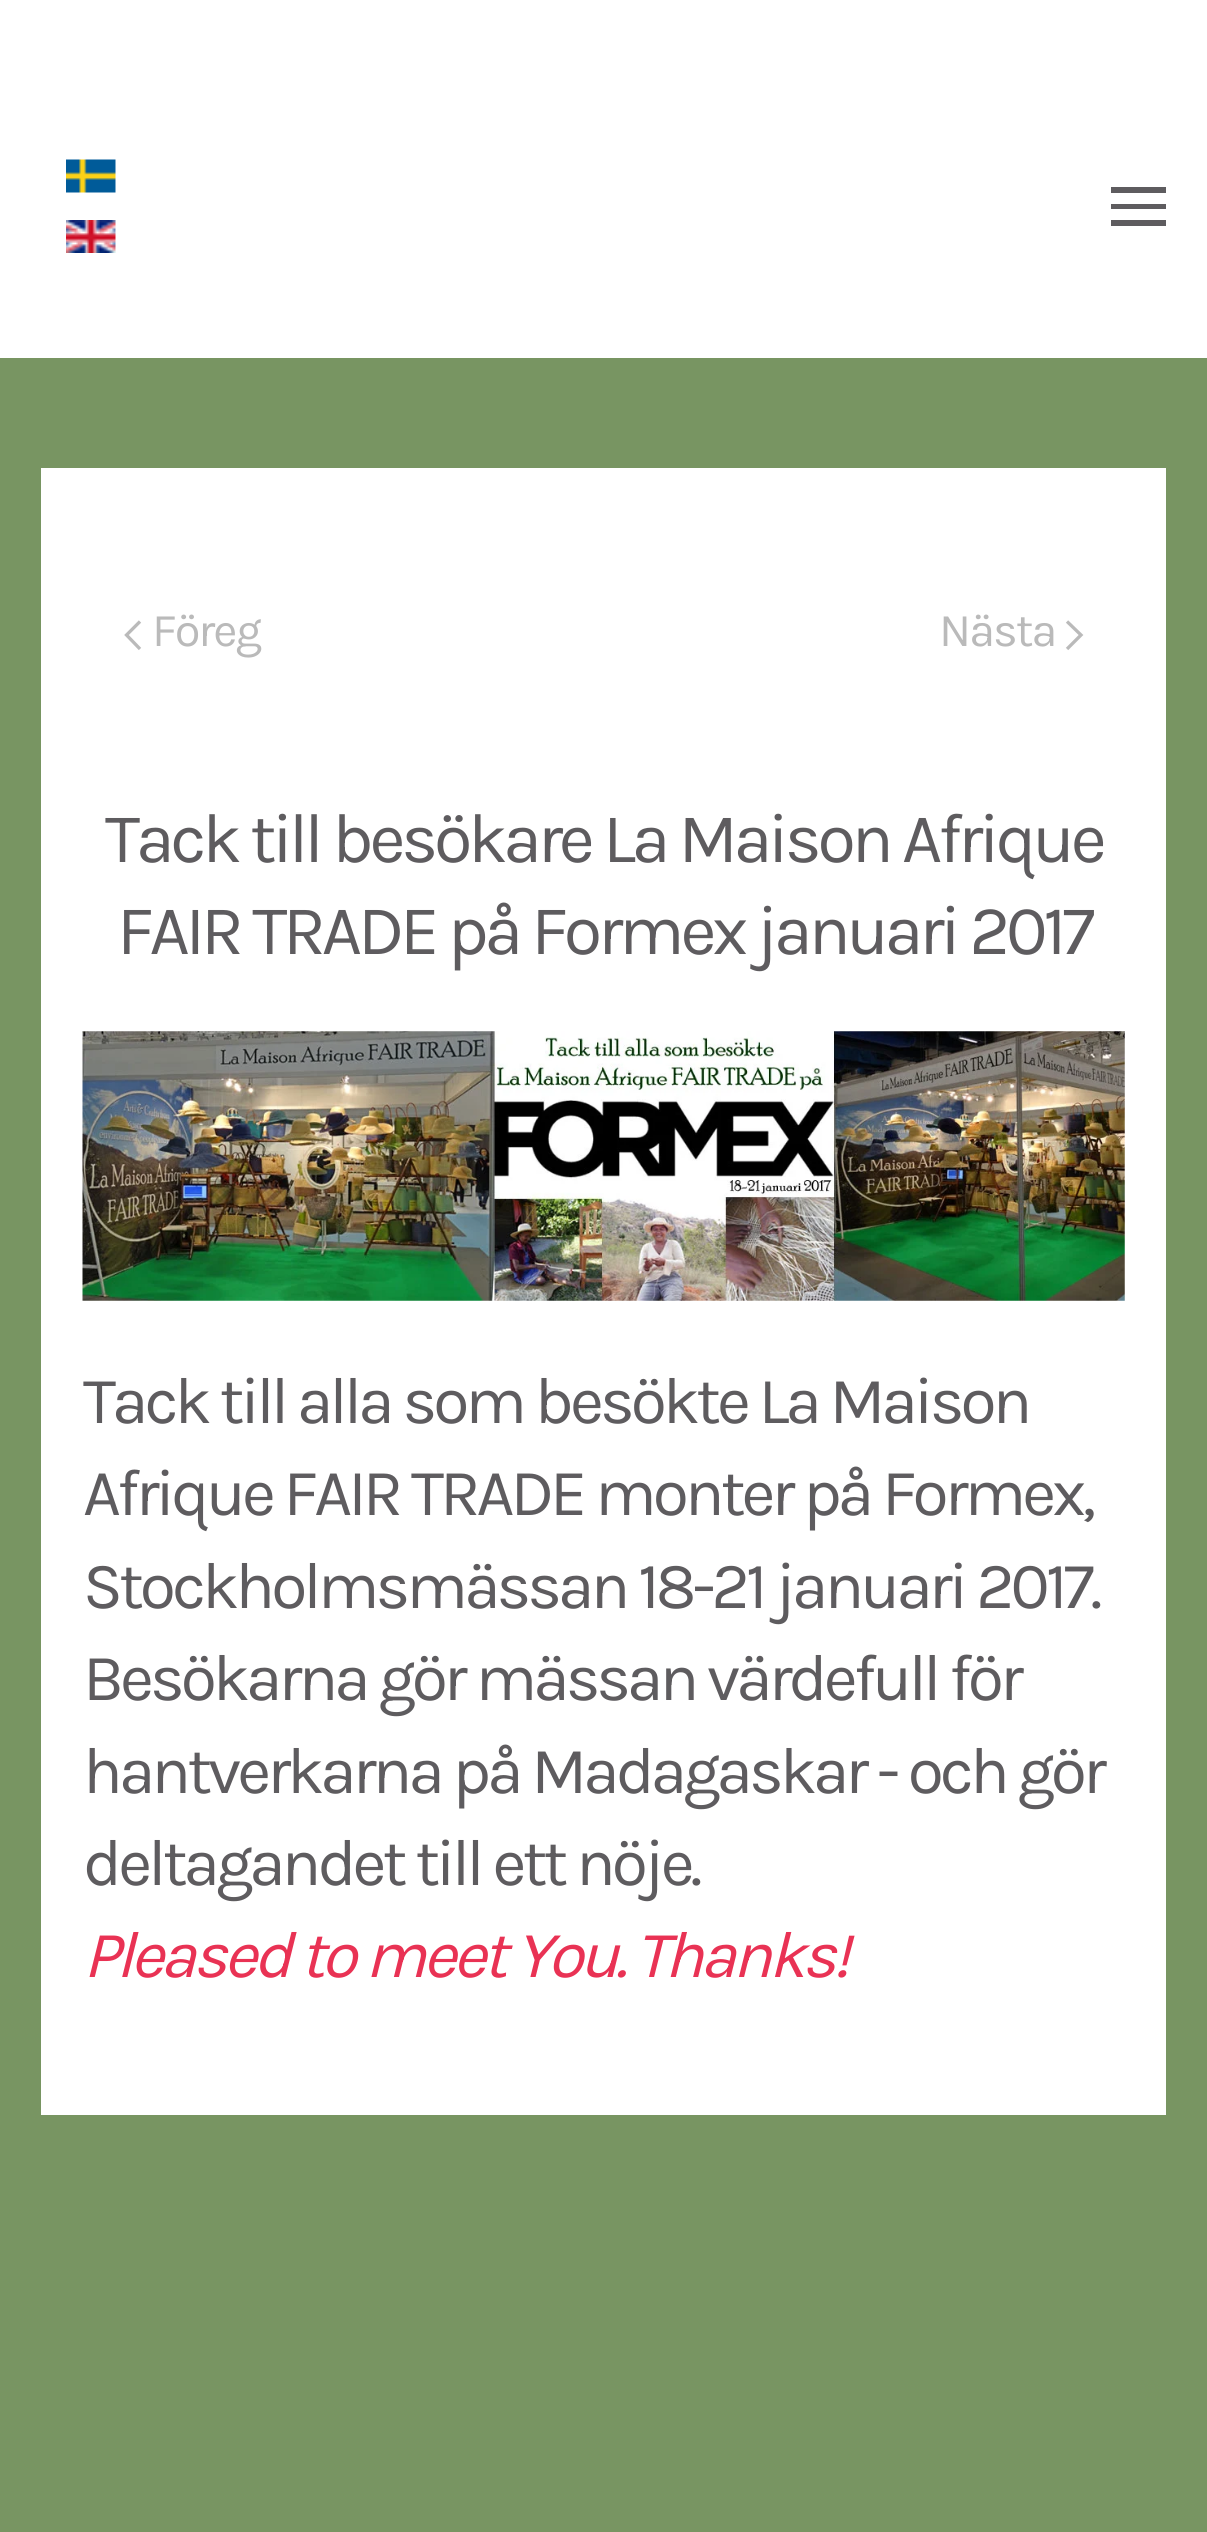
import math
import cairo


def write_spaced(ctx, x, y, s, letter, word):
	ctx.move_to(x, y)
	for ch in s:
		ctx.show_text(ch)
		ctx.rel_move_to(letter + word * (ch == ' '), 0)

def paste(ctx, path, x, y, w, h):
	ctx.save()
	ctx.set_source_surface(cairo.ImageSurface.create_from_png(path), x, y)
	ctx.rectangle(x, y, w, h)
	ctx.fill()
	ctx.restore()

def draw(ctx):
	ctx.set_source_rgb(1, 1, 1)
	ctx.paint()
	paste(ctx, 'media/1.png', 66, 159, 50, 34)
	paste(ctx, 'media/2.png', 66, 220, 50, 33)
	ctx.set_source_rgb(0.369, 0.361, 0.373)
	ctx.rectangle(1111, 187, 55, 6)
	ctx.rectangle(1111, 204, 55, 5)
	ctx.rectangle(1111, 220, 55, 6)
	ctx.fill()
	ctx.set_source_rgb(0.471, 0.584, 0.384)
	ctx.rectangle(0, 358, 1207, 2174)
	ctx.fill()
	ctx.set_source_rgb(1, 1, 1)
	ctx.rectangle(41, 468, 1125, 1647)
	ctx.fill()
	ctx.new_path()
	ctx.move_to(140, 621.5)
	ctx.line_to(126.5, 635)
	ctx.line_to(140, 649)
	ctx.set_source_rgb(0.729, 0.729, 0.729)
	ctx.set_line_width(3.3)
	ctx.stroke()
	ctx.select_font_face('Karla')
	ctx.set_font_size(47)
	write_spaced(ctx, 152, 646, 'Föreg', -2, 0)
	write_spaced(ctx, 939, 646, 'Nästa', -2, 0)
	ctx.new_path()
	ctx.move_to(1067, 621.5)
	ctx.line_to(1081, 635)
	ctx.line_to(1067, 649)
	ctx.stroke()
	ctx.set_font_size(70.1)
	ctx.set_source_rgb(0.369, 0.361, 0.373)
	write_spaced(ctx, 105, 862, 'Tack till besökare La Maison Afrique', -4.2, 0)
	write_spaced(ctx, 117, 954, 'FAIR TRADE på Formex januari 2017', -4.2, 0)
	paste(ctx, 'media/3.png', 82, 1031, 1043, 270)
	ctx.set_font_size(66)
	for x, y, s in [
		(83, 1423, 'Tack till alla som besökte La Maison'),
		(83, 1515, 'Afrique FAIR TRADE monter på Formex,'),
		(83, 1608, 'Stockholmsmässan 18-21 januari 2017.'),
		(83, 1700, 'Besökarna gör mässan värdefull för'),
		(83, 1793, 'hantverkarna på Madagaskar - och gör'),
		(83, 1885, 'deltagandet till ett nöje.'),
	]:
		write_spaced(ctx, x, y, s, -3.95, 0)
	ctx.select_font_face('Karla', cairo.FONT_SLANT_ITALIC)
	ctx.set_source_rgb(0.914, 0.196, 0.329)
	write_spaced(ctx, 83, 1977, 'Pleased to meet You. Thanks!', -3.95, 0)


surface = cairo.ImageSurface(cairo.FORMAT_RGB24, 1207, 2532)
ctx = cairo.Context(surface)
options = cairo.FontOptions()
options.set_hint_metrics(cairo.HINT_METRICS_OFF)
options.set_hint_style(cairo.HINT_STYLE_NONE)
ctx.set_font_options(options)
ctx.set_miter_limit(4)
draw(ctx)
surface.write_to_png('image.png')
